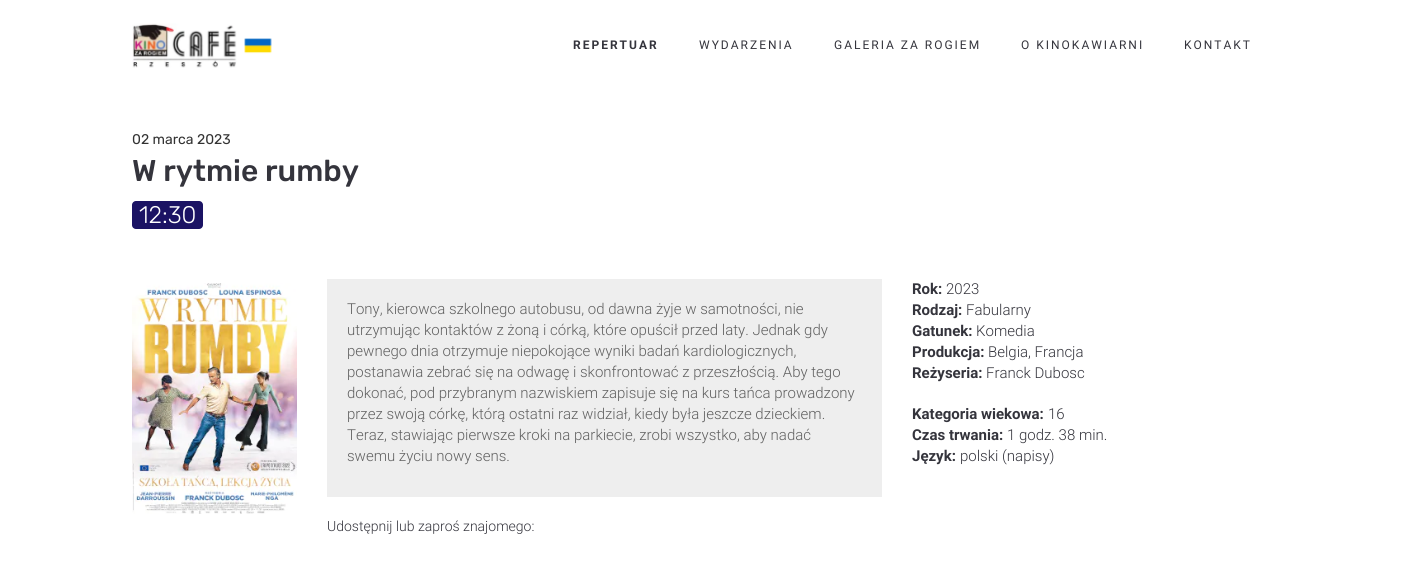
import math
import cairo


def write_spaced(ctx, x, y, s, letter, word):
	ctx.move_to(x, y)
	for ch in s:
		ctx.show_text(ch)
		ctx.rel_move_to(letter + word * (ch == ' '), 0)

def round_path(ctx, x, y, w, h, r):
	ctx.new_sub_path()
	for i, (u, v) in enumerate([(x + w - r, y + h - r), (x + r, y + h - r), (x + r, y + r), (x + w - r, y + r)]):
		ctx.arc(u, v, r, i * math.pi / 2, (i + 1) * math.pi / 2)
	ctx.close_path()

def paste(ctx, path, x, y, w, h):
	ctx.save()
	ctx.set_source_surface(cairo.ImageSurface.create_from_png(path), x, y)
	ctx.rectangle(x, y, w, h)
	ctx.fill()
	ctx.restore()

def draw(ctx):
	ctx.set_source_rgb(1, 1, 1)
	ctx.paint()
	paste(ctx, 'media/1.png', 132, 23, 140, 45)
	ctx.select_font_face('Roboto', cairo.FONT_SLANT_NORMAL, cairo.FONT_WEIGHT_BOLD)
	ctx.set_font_size(12)
	ctx.set_source_rgb(0.204, 0.204, 0.235)
	write_spaced(ctx, 573, 49, 'REPERTUAR', 2, 0)
	ctx.select_font_face('Roboto')
	for x, y, s in [
		(699, 49, 'WYDARZENIA'),
		(834, 49, 'GALERIA ZA ROGIEM'),
		(1021, 49, 'O KINOKAWIARNI'),
		(1184, 49, 'KONTAKT'),
	]:
		write_spaced(ctx, x, y, s, 2, 0)
	ctx.select_font_face('Rubik')
	ctx.set_font_size(14)
	ctx.set_source_rgb(0.2, 0.2, 0.2)
	ctx.move_to(132, 144)
	ctx.show_text('02 marca 2023')
	ctx.select_font_face('Rubik Medium')
	ctx.set_font_size(30)
	ctx.set_source_rgb(0.204, 0.204, 0.235)
	ctx.move_to(132, 181)
	ctx.show_text('W rytmie rumby')
	ctx.set_source_rgb(0.106, 0.078, 0.392)
	round_path(ctx, 132, 201, 71, 28, 4)
	ctx.fill()
	ctx.select_font_face('Rubik Light')
	ctx.set_font_size(24)
	ctx.set_source_rgb(1, 1, 1)
	ctx.move_to(139, 223)
	ctx.show_text('12:30')
	paste(ctx, 'media/2.png', 132, 283, 165, 231)
	ctx.set_source_rgb(0.933, 0.933, 0.933)
	ctx.rectangle(327, 279, 555, 218)
	ctx.fill()
	ctx.select_font_face('Roboto Light')
	ctx.set_font_size(15)
	ctx.set_source_rgb(0.376, 0.376, 0.376)
	for x, y, s in [
		(347, 314, 'Tony, kierowca szkolnego autobusu, od dawna żyje w samotności, nie'),
		(347, 335, 'utrzymując kontaktów z żoną i córką, które opuścił przed laty. Jednak gdy'),
		(347, 356, 'pewnego dnia otrzymuje niepokojące wyniki badań kardiologicznych,'),
		(347, 377, 'postanawia zebrać się na odwagę i skonfrontować z przeszłością. Aby tego'),
		(347, 398, 'dokonać, pod przybranym nazwiskiem zapisuje się na kurs tańca prowadzony'),
		(347, 419, 'przez swoją córkę, którą ostatni raz widział, kiedy była jeszcze dzieckiem.'),
		(347, 440, 'Teraz, stawiając pierwsze kroki na parkiecie, zrobi wszystko, aby nadać'),
		(347, 461, 'swemu życiu nowy sens.'),
	]:
		ctx.move_to(x, y)
		ctx.show_text(s)
	ctx.set_font_size(14)
	ctx.set_source_rgb(0.204, 0.204, 0.235)
	ctx.move_to(327, 531)
	ctx.show_text('Udostępnij lub zaproś znajomego:')
	ctx.select_font_face('Roboto', cairo.FONT_SLANT_NORMAL, cairo.FONT_WEIGHT_BOLD)
	ctx.set_font_size(15)
	ctx.move_to(912, 294)
	ctx.show_text('Rok:')
	ctx.select_font_face('Roboto Light')
	ctx.move_to(946, 294)
	ctx.show_text('2023')
	ctx.select_font_face('Roboto', cairo.FONT_SLANT_NORMAL, cairo.FONT_WEIGHT_BOLD)
	ctx.move_to(912, 315)
	ctx.show_text('Rodzaj:')
	ctx.select_font_face('Roboto Light')
	ctx.move_to(966, 315)
	ctx.show_text('Fabularny')
	ctx.select_font_face('Roboto', cairo.FONT_SLANT_NORMAL, cairo.FONT_WEIGHT_BOLD)
	ctx.move_to(912, 336)
	ctx.show_text('Gatunek:')
	ctx.select_font_face('Roboto Light')
	ctx.move_to(976, 336)
	ctx.show_text('Komedia')
	ctx.select_font_face('Roboto', cairo.FONT_SLANT_NORMAL, cairo.FONT_WEIGHT_BOLD)
	ctx.move_to(912, 357)
	ctx.show_text('Produkcja:')
	ctx.select_font_face('Roboto Light')
	ctx.move_to(988, 357)
	ctx.show_text('Belgia, Francja')
	ctx.select_font_face('Roboto', cairo.FONT_SLANT_NORMAL, cairo.FONT_WEIGHT_BOLD)
	ctx.move_to(912, 378)
	ctx.show_text('Reżyseria:')
	ctx.select_font_face('Roboto Light')
	ctx.move_to(986, 378)
	ctx.show_text('Franck Dubosc')
	ctx.select_font_face('Roboto', cairo.FONT_SLANT_NORMAL, cairo.FONT_WEIGHT_BOLD)
	ctx.move_to(912, 419)
	ctx.show_text('Kategoria wiekowa:')
	ctx.select_font_face('Roboto Light')
	ctx.move_to(1048, 419)
	ctx.show_text('16')
	ctx.select_font_face('Roboto', cairo.FONT_SLANT_NORMAL, cairo.FONT_WEIGHT_BOLD)
	ctx.move_to(912, 440)
	ctx.show_text('Czas trwania:')
	ctx.select_font_face('Roboto Light')
	ctx.move_to(1007, 440)
	ctx.show_text('1 godz. 38 min.')
	ctx.select_font_face('Roboto', cairo.FONT_SLANT_NORMAL, cairo.FONT_WEIGHT_BOLD)
	ctx.move_to(912, 461)
	ctx.show_text('Język:')
	ctx.select_font_face('Roboto Light')
	ctx.move_to(960, 461)
	ctx.show_text('polski (napisy)')


surface = cairo.ImageSurface(cairo.FORMAT_RGB24, 1404, 568)
ctx = cairo.Context(surface)
options = cairo.FontOptions()
options.set_hint_metrics(cairo.HINT_METRICS_OFF)
options.set_hint_style(cairo.HINT_STYLE_NONE)
ctx.set_font_options(options)
ctx.set_miter_limit(4)
draw(ctx)
surface.write_to_png('image.png')
